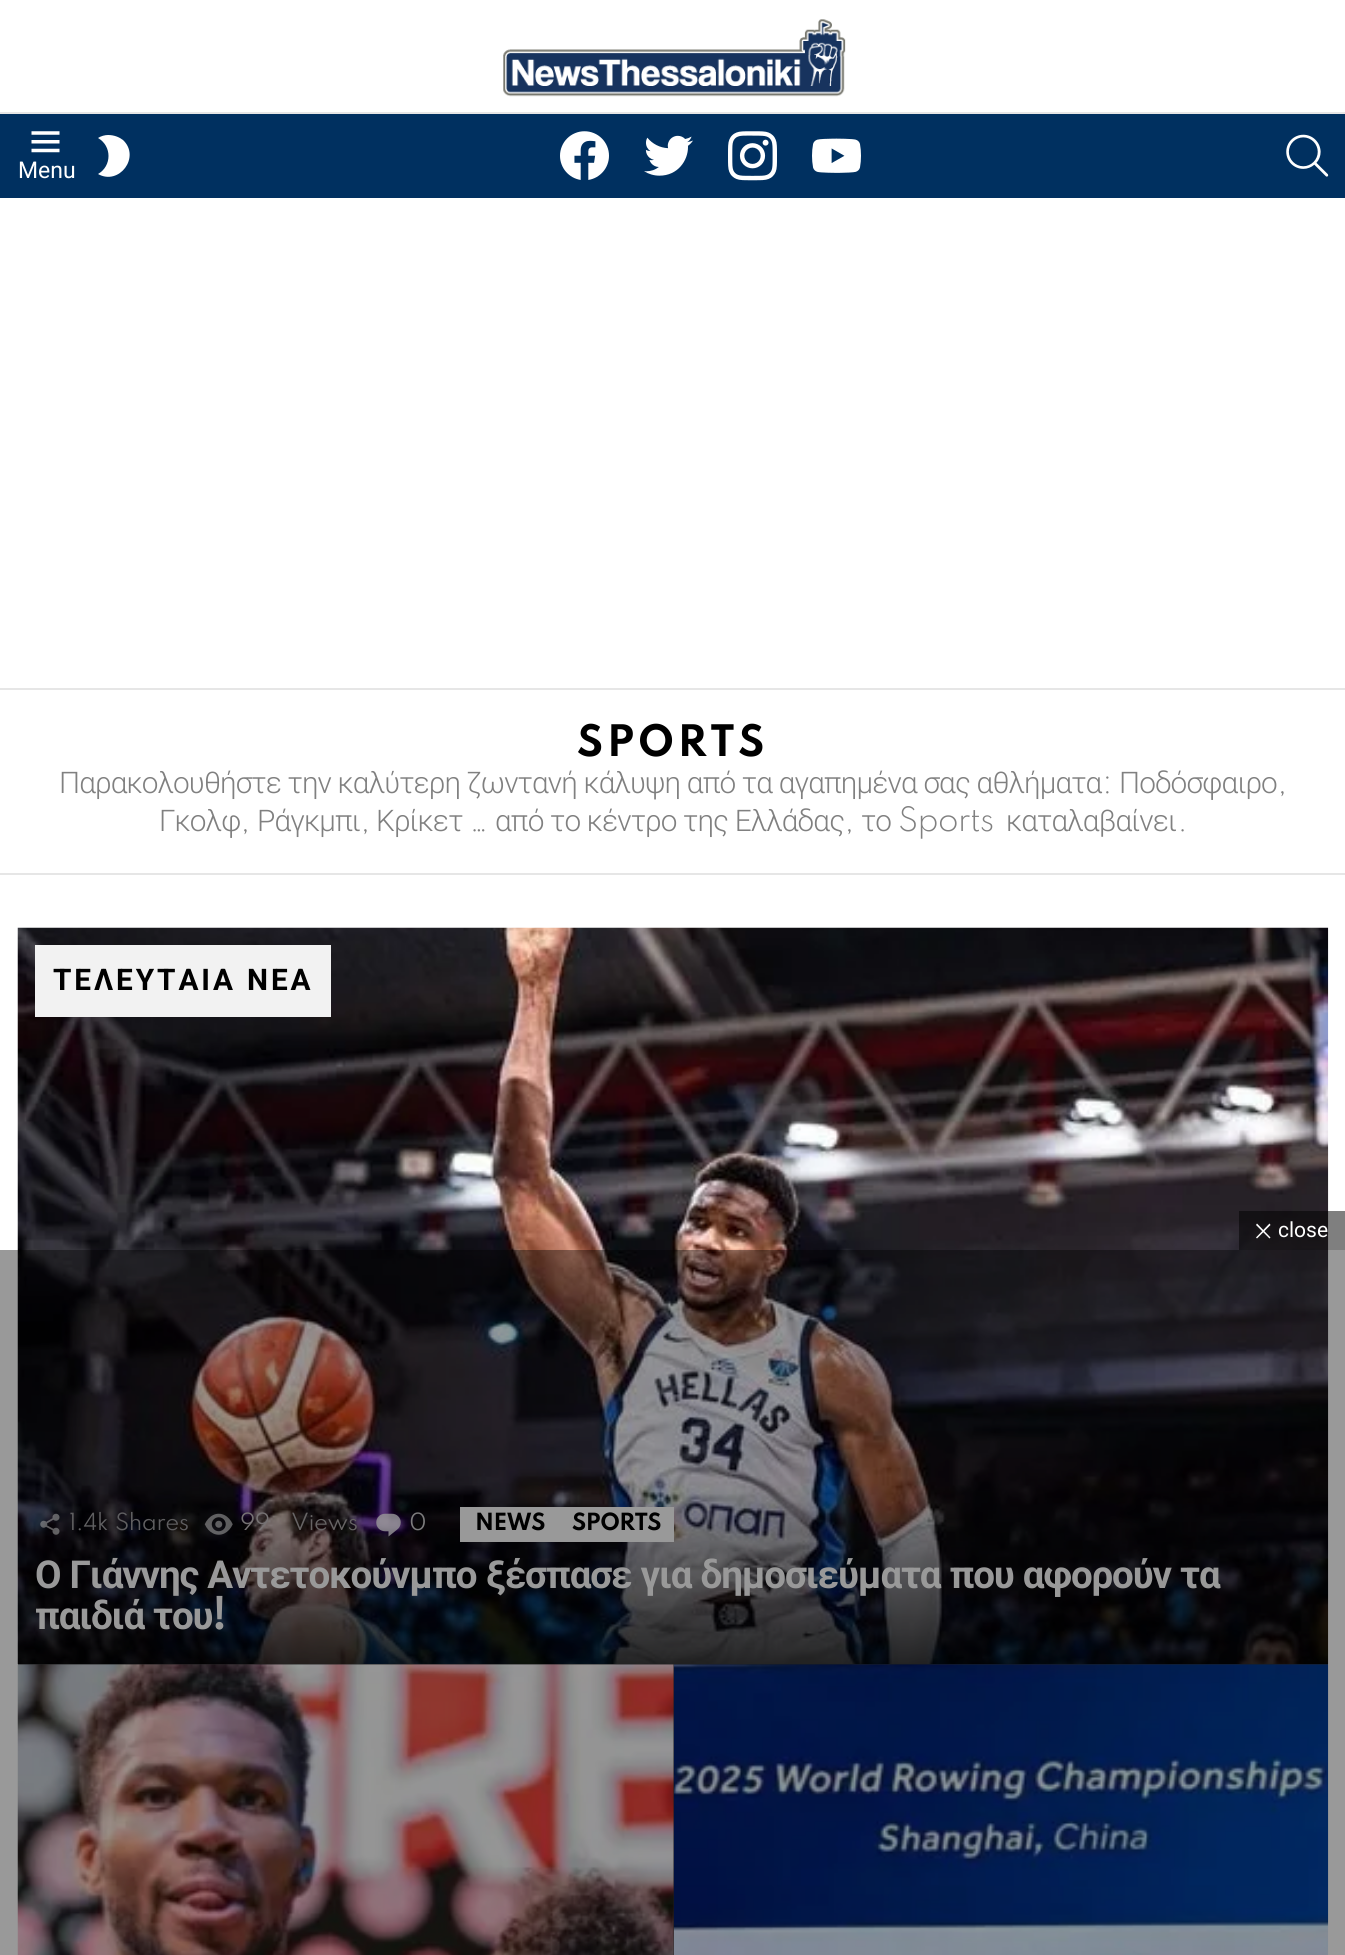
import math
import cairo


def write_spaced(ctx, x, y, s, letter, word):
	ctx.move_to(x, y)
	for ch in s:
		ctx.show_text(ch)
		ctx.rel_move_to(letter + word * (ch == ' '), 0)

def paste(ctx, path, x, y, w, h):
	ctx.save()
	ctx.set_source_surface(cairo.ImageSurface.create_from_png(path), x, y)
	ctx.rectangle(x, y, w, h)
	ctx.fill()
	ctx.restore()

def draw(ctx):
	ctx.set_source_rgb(1, 1, 1)
	ctx.paint()
	paste(ctx, 'media/1.png', 503, 19, 343, 78)
	ctx.set_source_rgb(0.902, 0.902, 0.902)
	ctx.rectangle(0, 112, 1345, 2)
	ctx.fill()
	ctx.set_source_rgb(0, 0.188, 0.376)
	ctx.rectangle(0, 114, 1345, 84)
	ctx.fill()
	paste(ctx, 'media/2.png', 31, 131, 29, 22)
	ctx.select_font_face('Roboto')
	ctx.set_font_size(23)
	ctx.set_source_rgb(1, 1, 1)
	ctx.move_to(18, 178)
	ctx.show_text('Menu')
	ctx.new_path()
	ctx.move_to(108, 135)
	ctx.curve_to(105, 135, 101, 136, 98, 138)
	ctx.curve_to(112, 146, 112, 166, 98, 174)
	ctx.curve_to(119, 186, 141, 157, 123, 140)
	ctx.curve_to(119, 137, 114, 135, 108, 135)
	ctx.close_path()
	ctx.fill()
	paste(ctx, 'media/3.png', 560, 131, 49, 49)
	paste(ctx, 'media/4.png', 644, 135, 49, 41)
	paste(ctx, 'media/5.png', 728, 131, 49, 50)
	paste(ctx, 'media/6.png', 812, 138, 49, 35)
	paste(ctx, 'media/7.png', 1286, 134, 43, 43)
	ctx.set_source_rgb(0.902, 0.902, 0.902)
	ctx.rectangle(0, 688, 1345, 2)
	ctx.fill()
	ctx.select_font_face('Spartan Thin', cairo.FONT_SLANT_NORMAL, cairo.FONT_WEIGHT_BOLD)
	ctx.set_font_size(38.5)
	ctx.set_source_rgb(0, 0, 0)
	write_spaced(ctx, 577, 756, 'SPORTS', 3.75, 0)
	ctx.select_font_face('Roboto Light')
	ctx.set_font_size(29.75)
	ctx.set_source_rgb(0.502, 0.502, 0.502)
	write_spaced(ctx, 59, 793, 'Παρακολουθήστε την καλύτερη ζωντανή κάλυψη από τα αγαπημένα σας αθλήματα', -0.9, 0.25)
	ctx.select_font_face('Spartan Thin Light')
	write_spaced(ctx, 1102, 793, ':', -0.9, 0)
	ctx.select_font_face('Roboto Light')
	write_spaced(ctx, 1119, 793, 'Ποδόσφαιρο', -0.9, 0)
	ctx.select_font_face('Spartan Thin Light')
	write_spaced(ctx, 1277, 793, ',', -0.9, 0)
	ctx.select_font_face('Roboto Light')
	write_spaced(ctx, 159, 831, 'Γκολφ', -0.9, 0)
	ctx.select_font_face('Spartan Thin Light')
	write_spaced(ctx, 240, 831, ',', -0.9, 0)
	ctx.select_font_face('Roboto Light')
	write_spaced(ctx, 257, 831, 'Ράγκμπι', -0.9, 0)
	ctx.select_font_face('Spartan Thin Light')
	write_spaced(ctx, 360, 831, ',', -0.9, 0)
	ctx.select_font_face('Roboto Light')
	write_spaced(ctx, 376, 831, 'Κρίκετ', -0.9, 0)
	ctx.select_font_face('Spartan Thin Light')
	write_spaced(ctx, 469, 831, '…', -0.9, 0)
	ctx.select_font_face('Roboto Light')
	write_spaced(ctx, 495, 831, 'από το κέντρο της Ελλάδας', -0.9, 0.25)
	ctx.select_font_face('Spartan Thin Light')
	write_spaced(ctx, 844, 831, ',', -0.9, 0)
	ctx.select_font_face('Roboto Light')
	write_spaced(ctx, 861, 831, 'το', -0.9, 0)
	ctx.select_font_face('Spartan Thin Light')
	write_spaced(ctx, 898, 831, 'Sports', -0.9, 0)
	ctx.select_font_face('Roboto Light')
	write_spaced(ctx, 1006, 831, 'καταλαβαίνει', -0.9, 0)
	ctx.select_font_face('Spartan Thin Light')
	write_spaced(ctx, 1177, 831, '.', -0.9, 0)
	ctx.set_source_rgb(0.902, 0.902, 0.902)
	ctx.rectangle(0, 873, 1345, 2)
	ctx.fill()
	paste(ctx, 'media/8.png', 17, 927, 1312, 737)
	ctx.set_source_rgb(0.949, 0.949, 0.949)
	ctx.rectangle(35, 945, 296, 72)
	ctx.fill()
	ctx.select_font_face('Roboto', cairo.FONT_SLANT_NORMAL, cairo.FONT_WEIGHT_BOLD)
	ctx.set_source_rgb(0, 0, 0)
	write_spaced(ctx, 53, 990, 'ΤΕΛΕΥΤΑΙΑ ΝΕΑ', 2.9, 1)
	paste(ctx, 'media/9.png', 40, 1513, 20, 22)
	ctx.select_font_face('Spartan Thin')
	ctx.set_font_size(21)
	ctx.set_source_rgb(0.624, 0.62, 0.631)
	write_spaced(ctx, 69, 1530, '1.4k', -0.5, 0)
	write_spaced(ctx, 115, 1530, 'Shares', -0.5, 0)
	paste(ctx, 'media/10.png', 204, 1513, 29, 22)
	ctx.set_source_rgb(0.773, 0.745, 0.757)
	write_spaced(ctx, 240, 1530, '99', -0.5, 0)
	ctx.set_source_rgb(0.671, 0.655, 0.659)
	write_spaced(ctx, 291, 1530, 'Views', -0.5, 0)
	paste(ctx, 'media/11.png', 376, 1513, 25, 24)
	ctx.set_source_rgb(0.812, 0.808, 0.816)
	write_spaced(ctx, 409, 1530, '0', -0.5, 0)
	ctx.set_source_rgb(1, 1, 1)
	ctx.rectangle(460, 1507, 214, 35)
	ctx.fill()
	ctx.select_font_face('Spartan Thin', cairo.FONT_SLANT_NORMAL, cairo.FONT_WEIGHT_BOLD)
	ctx.set_source_rgb(0, 0, 0)
	write_spaced(ctx, 475, 1530, 'NEWS', -0.5, 0)
	write_spaced(ctx, 572, 1530, 'SPORTS', -0.5, 0)
	ctx.select_font_face('Roboto', cairo.FONT_SLANT_NORMAL, cairo.FONT_WEIGHT_BOLD)
	ctx.set_font_size(38.5)
	ctx.set_source_rgb(1, 1, 1)
	write_spaced(ctx, 35, 1588, 'Ο Γιάννης Αντετοκούνμπο ξέσπασε για δημοσιεύματα που αφορούν τα', -1.15, 0.75)
	write_spaced(ctx, 35, 1629, 'παιδιά του', -1.15, 0.75)
	ctx.select_font_face('Spartan Thin', cairo.FONT_SLANT_NORMAL, cairo.FONT_WEIGHT_BOLD)
	write_spaced(ctx, 212, 1629, '!', -1.15, 0)
	ctx.set_source_rgb(0.2, 0.2, 0.2)
	ctx.rectangle(18, 1664, 656, 291)
	ctx.fill()
	paste(ctx, 'media/12.png', 17, 1664, 657, 291)
	ctx.rectangle(674, 1664, 654, 1)
	ctx.fill()
	paste(ctx, 'media/13.png', 673, 1664, 656, 291)
	ctx.set_source_rgba(0, 0, 0, 0.4)
	ctx.rectangle(0, 1250, 1345, 705)
	ctx.fill()
	ctx.set_source_rgba(0, 0, 0, 0.5)
	ctx.rectangle(1239, 1211, 106, 39)
	ctx.fill()
	ctx.set_source_rgb(1, 1, 1)
	ctx.new_path()
	ctx.move_to(1257, 1223.5)
	ctx.line_to(1270.5, 1237.5)
	ctx.line_to(1269.5, 1238.5)
	ctx.line_to(1256, 1225)
	ctx.close_path()
	ctx.fill()
	ctx.select_font_face('Roboto')
	ctx.set_font_size(21)
	ctx.move_to(1278, 1237)
	ctx.show_text('close')
	ctx.new_path()
	ctx.move_to(1269.5, 1223.5)
	ctx.line_to(1270.5, 1225)
	ctx.line_to(1257, 1238.5)
	ctx.line_to(1256, 1237.5)
	ctx.close_path()
	ctx.fill()


surface = cairo.ImageSurface(cairo.FORMAT_RGB24, 1345, 1955)
ctx = cairo.Context(surface)
options = cairo.FontOptions()
options.set_hint_metrics(cairo.HINT_METRICS_OFF)
options.set_hint_style(cairo.HINT_STYLE_NONE)
ctx.set_font_options(options)
ctx.set_miter_limit(4)
draw(ctx)
surface.write_to_png('image.png')
